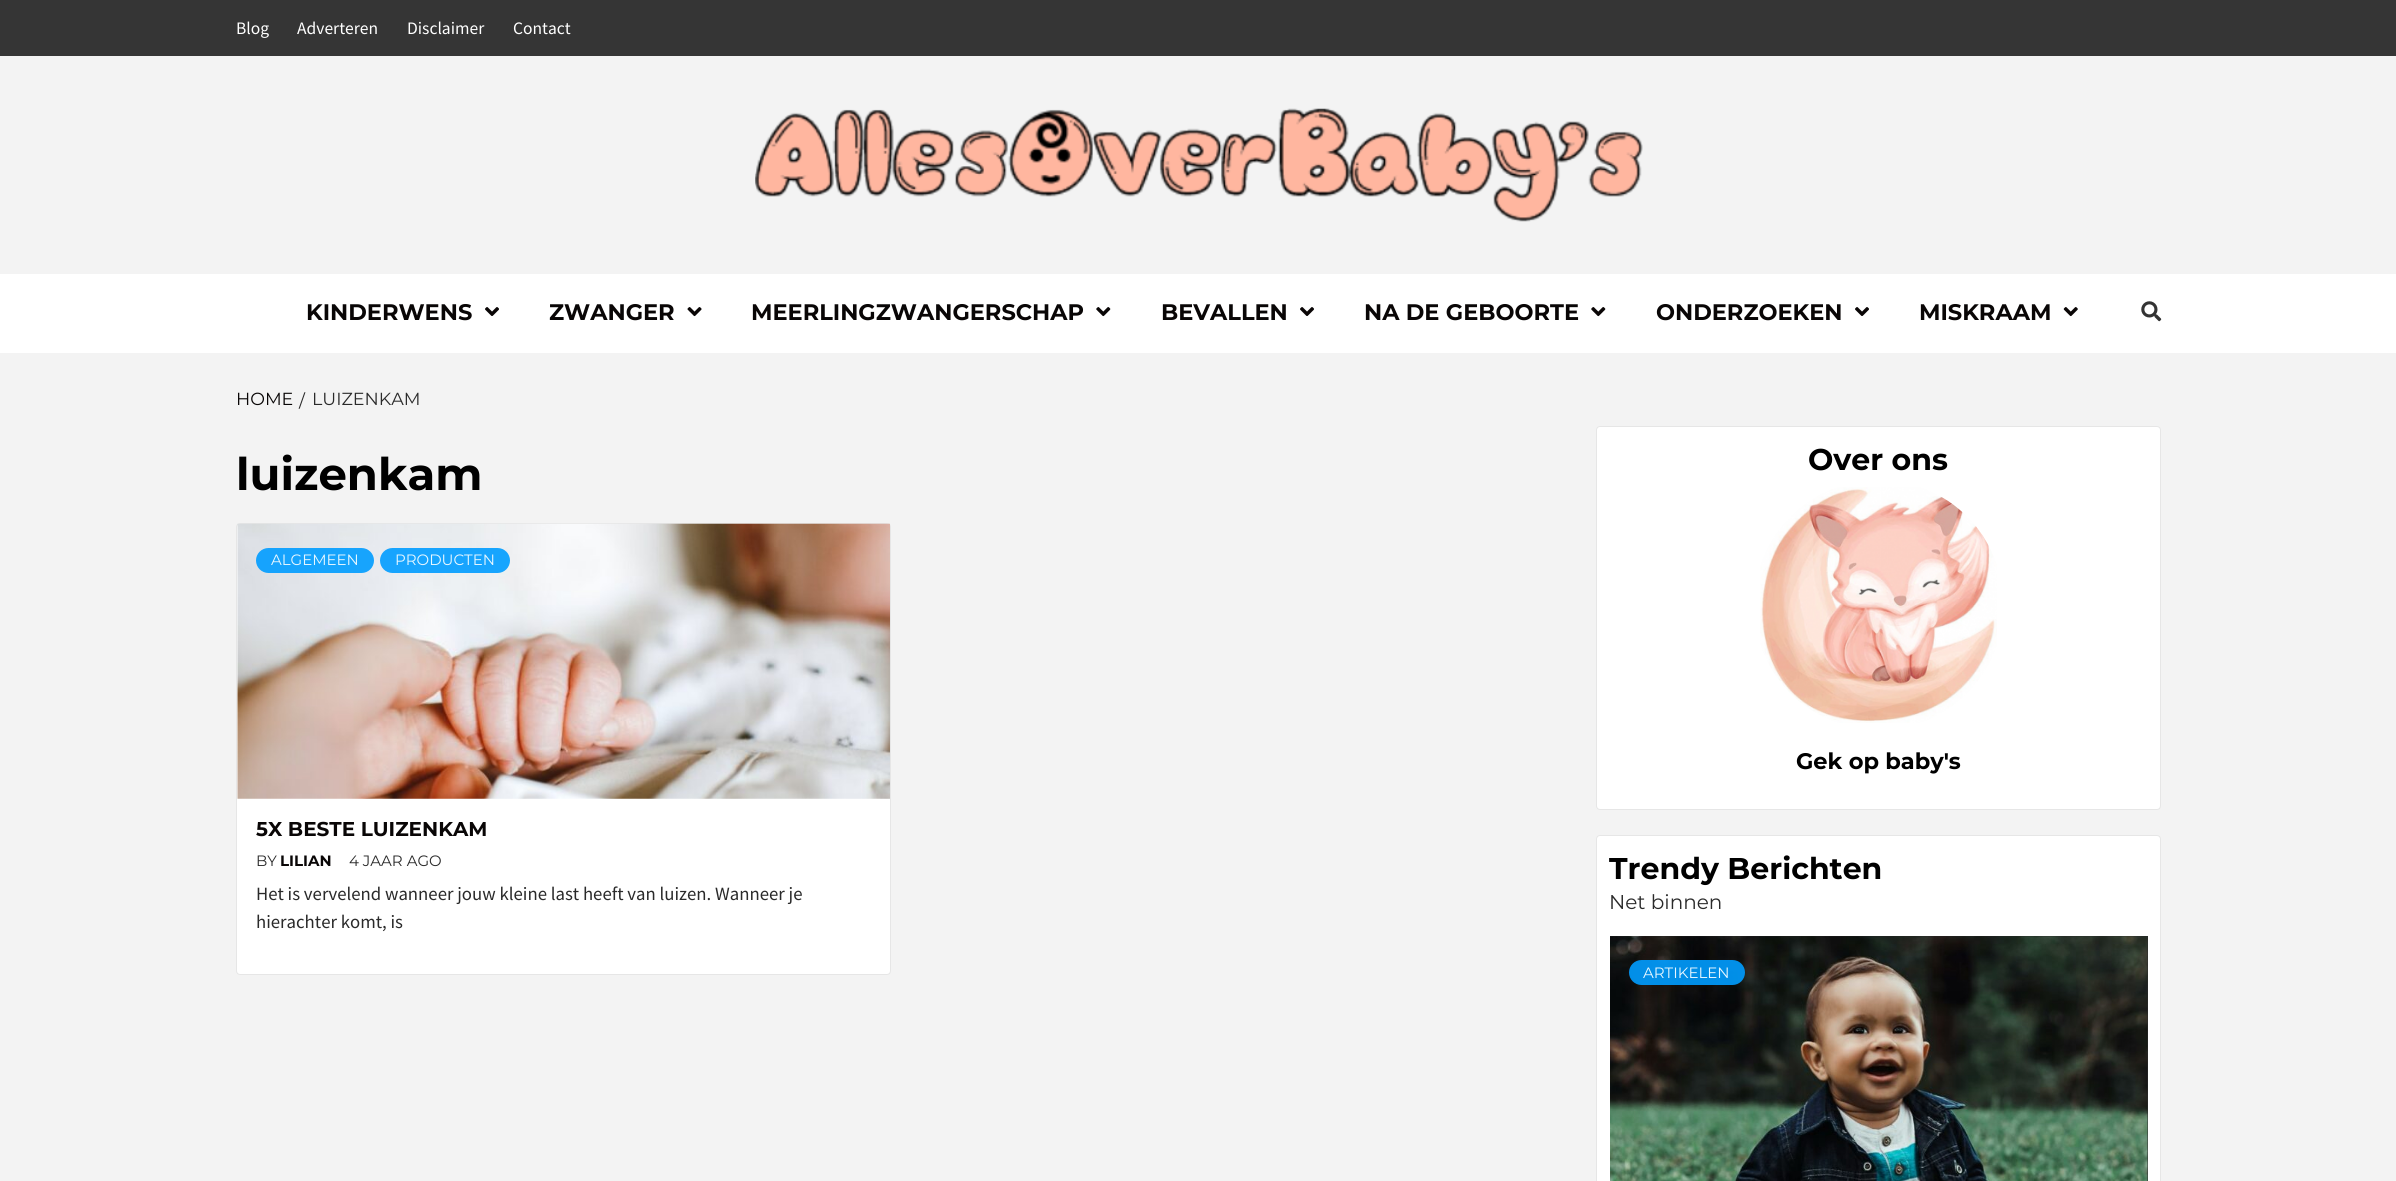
import math
import cairo


def round_path(ctx, x, y, w, h, r):
	ctx.new_sub_path()
	for i, (u, v) in enumerate([(x + w - r, y + h - r), (x + r, y + h - r), (x + r, y + r), (x + w - r, y + r)]):
		ctx.arc(u, v, r, i * math.pi / 2, (i + 1) * math.pi / 2)
	ctx.close_path()

def paste(ctx, path, x, y, w, h):
	ctx.save()
	ctx.set_source_surface(cairo.ImageSurface.create_from_png(path), x, y)
	ctx.rectangle(x, y, w, h)
	ctx.fill()
	ctx.restore()

def draw(ctx):
	ctx.set_source_rgb(0.953, 0.953, 0.953)
	ctx.paint()
	ctx.set_source_rgb(0.208, 0.208, 0.208)
	ctx.rectangle(0, 0, 2396, 56)
	ctx.fill()
	ctx.select_font_face('Source Sans Pro')
	ctx.set_font_size(17.5)
	ctx.set_source_rgb(1, 1, 1)
	for x, y, s in [
		(236, 34, 'Blog'),
		(297, 34, 'Adverteren'),
		(407, 34, 'Disclaimer'),
		(513, 34, 'Contact'),
	]:
		ctx.move_to(x, y)
		ctx.show_text(s)
	paste(ctx, 'media/1.png', 755, 108, 888, 114)
	ctx.rectangle(0, 274, 2396, 79)
	ctx.fill()
	ctx.select_font_face('Montserrat', cairo.FONT_SLANT_NORMAL, cairo.FONT_WEIGHT_BOLD)
	ctx.set_font_size(22.5)
	ctx.set_source_rgb(0.039, 0.024, 0.024)
	ctx.move_to(306, 320)
	ctx.show_text('KINDERWENS')
	paste(ctx, 'media/2.png', 485, 307, 14, 9)
	ctx.move_to(549, 320)
	ctx.show_text('ZWANGER')
	paste(ctx, 'media/3.png', 687, 307, 15, 10)
	ctx.move_to(751, 320)
	ctx.show_text('MEERLINGZWANGERSCHAP')
	paste(ctx, 'media/4.png', 1096, 307, 15, 10)
	ctx.move_to(1161, 320)
	ctx.show_text('BEVALLEN')
	paste(ctx, 'media/2.png', 1300, 307, 14, 9)
	ctx.move_to(1364, 320)
	ctx.show_text('NA DE GEBOORTE')
	paste(ctx, 'media/4.png', 1591, 307, 15, 10)
	ctx.move_to(1656, 320)
	ctx.show_text('ONDERZOEKEN')
	paste(ctx, 'media/2.png', 1855, 307, 14, 9)
	ctx.move_to(1919, 320)
	ctx.show_text('MISKRAAM')
	paste(ctx, 'media/5.png', 2063, 307, 15, 10)
	paste(ctx, 'media/6.png', 2141, 301, 21, 21)
	ctx.select_font_face('Montserrat')
	ctx.set_font_size(17.5)
	ctx.move_to(236, 405)
	ctx.show_text('HOME')
	ctx.set_source_rgb(0.165, 0.165, 0.165)
	ctx.move_to(299, 407)
	ctx.show_text('/')
	ctx.move_to(312, 405)
	ctx.show_text('LUIZENKAM')
	ctx.select_font_face('Montserrat', cairo.FONT_SLANT_NORMAL, cairo.FONT_WEIGHT_BOLD)
	ctx.set_font_size(45)
	ctx.set_source_rgb(0, 0, 0)
	ctx.move_to(236, 490)
	ctx.show_text('luizenkam')
	ctx.set_source_rgb(1, 1, 1)
	round_path(ctx, 236, 523, 655, 452, 4)
	ctx.fill()
	round_path(ctx, 236.5, 523.5, 654, 451, 3.5)
	ctx.set_source_rgba(0, 0.004, 0.004, 0.1)
	ctx.set_line_width(1)
	ctx.stroke()
	paste(ctx, 'media/7.png', 237, 523, 653, 276)
	ctx.set_source_rgba(0, 0.612, 1, 0.9)
	round_path(ctx, 256, 548, 118, 25, 12.5)
	ctx.fill()
	ctx.select_font_face('Montserrat')
	ctx.set_font_size(15)
	ctx.set_source_rgb(0.91, 0.965, 1)
	ctx.move_to(271, 565)
	ctx.show_text('ALGEMEEN')
	ctx.set_source_rgba(0, 0.612, 1, 0.9)
	round_path(ctx, 380, 548, 130, 25, 12.5)
	ctx.fill()
	ctx.set_source_rgb(0.91, 0.965, 1)
	ctx.move_to(395, 565)
	ctx.show_text('PRODUCTEN')
	ctx.select_font_face('Montserrat', cairo.FONT_SLANT_NORMAL, cairo.FONT_WEIGHT_BOLD)
	ctx.set_font_size(20)
	ctx.set_source_rgb(0.039, 0.024, 0.024)
	ctx.move_to(256, 836)
	ctx.show_text('5X BESTE LUIZENKAM')
	ctx.select_font_face('Montserrat')
	ctx.set_font_size(15)
	ctx.set_source_rgb(0.165, 0.165, 0.165)
	ctx.move_to(256, 866)
	ctx.show_text('BY')
	ctx.select_font_face('Montserrat', cairo.FONT_SLANT_NORMAL, cairo.FONT_WEIGHT_BOLD)
	ctx.set_source_rgb(0.039, 0.024, 0.024)
	ctx.move_to(280, 866)
	ctx.show_text('LILIAN')
	ctx.select_font_face('Montserrat')
	ctx.set_source_rgb(0.165, 0.165, 0.165)
	ctx.move_to(349, 866)
	ctx.show_text('4 JAAR AGO')
	ctx.select_font_face('Source Sans Pro')
	ctx.set_font_size(18.75)
	ctx.move_to(256, 900)
	ctx.show_text('Het is vervelend wanneer jouw kleine last heeft van luizen. Wanneer je')
	ctx.move_to(256, 928)
	ctx.show_text('hierachter komt, is')
	ctx.set_source_rgb(1, 1, 1)
	round_path(ctx, 1596, 426, 565, 384, 4)
	ctx.fill()
	round_path(ctx, 1596.5, 426.5, 564, 383, 3.5)
	ctx.set_source_rgba(0, 0.004, 0.004, 0.1)
	ctx.stroke()
	ctx.select_font_face('Montserrat', cairo.FONT_SLANT_NORMAL, cairo.FONT_WEIGHT_BOLD)
	ctx.set_font_size(30)
	ctx.set_source_rgb(0, 0, 0)
	ctx.move_to(1808, 470)
	ctx.show_text('Over ons')
	paste(ctx, 'media/8.png', 1760, 487, 237, 236)
	ctx.set_font_size(22.5)
	ctx.move_to(1796, 769)
	ctx.show_text('Gek op baby\'s')
	ctx.set_source_rgb(1, 1, 1)
	round_path(ctx, 1596, 835, 565, 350, 4)
	ctx.fill()
	round_path(ctx, 1596.5, 835.5, 564, 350, 3.5)
	ctx.set_source_rgba(0, 0.004, 0.004, 0.1)
	ctx.stroke()
	ctx.set_font_size(30)
	ctx.set_source_rgb(0, 0, 0)
	ctx.move_to(1609, 879)
	ctx.show_text('Trendy Berichten')
	ctx.select_font_face('Montserrat')
	ctx.set_font_size(20)
	ctx.set_source_rgb(0.165, 0.165, 0.165)
	ctx.move_to(1609, 909)
	ctx.show_text('Net binnen')
	ctx.rectangle(1610, 936, 538, 245)
	ctx.fill()
	paste(ctx, 'media/9.png', 1610, 936, 538, 245)
	ctx.set_source_rgba(0, 0.612, 1, 0.9)
	round_path(ctx, 1629, 960, 116, 25, 12.5)
	ctx.fill()
	ctx.set_font_size(15)
	ctx.set_source_rgb(0.91, 0.965, 1)
	ctx.move_to(1643, 978)
	ctx.show_text('ARTIKELEN')


surface = cairo.ImageSurface(cairo.FORMAT_RGB24, 2396, 1181)
ctx = cairo.Context(surface)
options = cairo.FontOptions()
options.set_hint_metrics(cairo.HINT_METRICS_OFF)
options.set_hint_style(cairo.HINT_STYLE_NONE)
ctx.set_font_options(options)
ctx.set_miter_limit(4)
draw(ctx)
surface.write_to_png('image.png')
